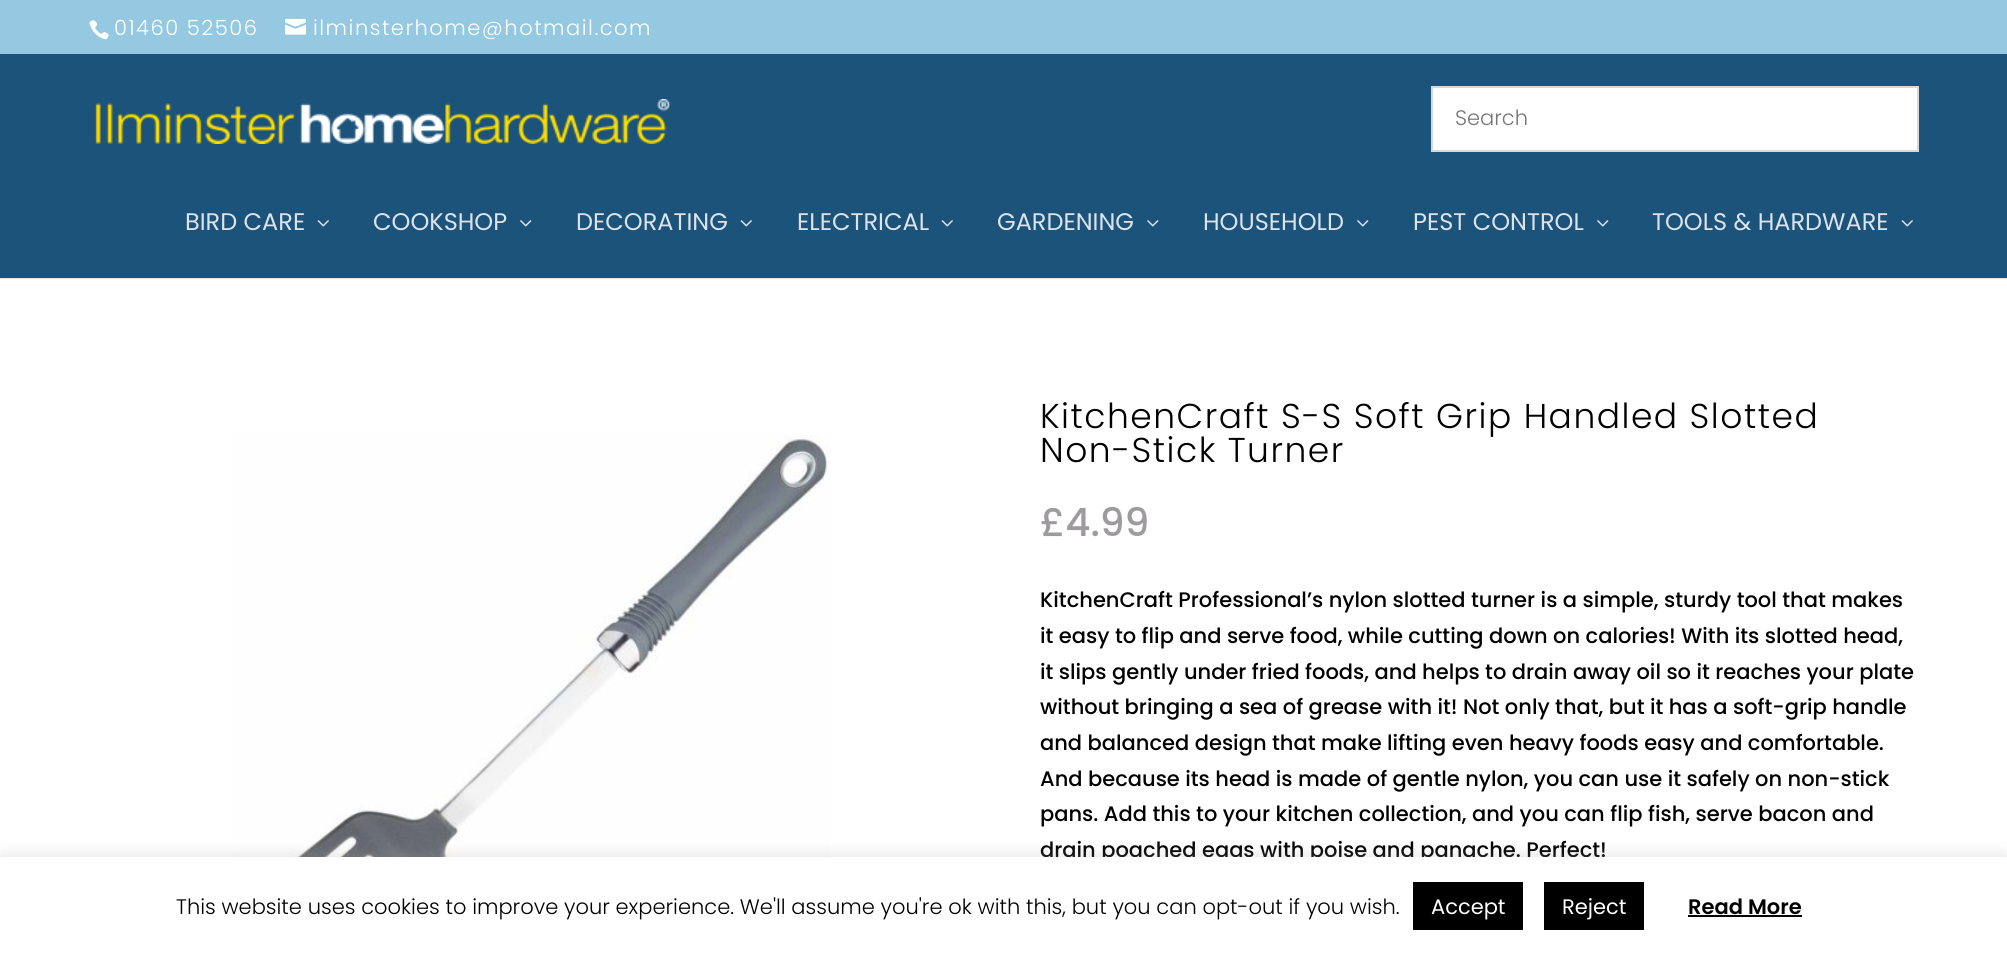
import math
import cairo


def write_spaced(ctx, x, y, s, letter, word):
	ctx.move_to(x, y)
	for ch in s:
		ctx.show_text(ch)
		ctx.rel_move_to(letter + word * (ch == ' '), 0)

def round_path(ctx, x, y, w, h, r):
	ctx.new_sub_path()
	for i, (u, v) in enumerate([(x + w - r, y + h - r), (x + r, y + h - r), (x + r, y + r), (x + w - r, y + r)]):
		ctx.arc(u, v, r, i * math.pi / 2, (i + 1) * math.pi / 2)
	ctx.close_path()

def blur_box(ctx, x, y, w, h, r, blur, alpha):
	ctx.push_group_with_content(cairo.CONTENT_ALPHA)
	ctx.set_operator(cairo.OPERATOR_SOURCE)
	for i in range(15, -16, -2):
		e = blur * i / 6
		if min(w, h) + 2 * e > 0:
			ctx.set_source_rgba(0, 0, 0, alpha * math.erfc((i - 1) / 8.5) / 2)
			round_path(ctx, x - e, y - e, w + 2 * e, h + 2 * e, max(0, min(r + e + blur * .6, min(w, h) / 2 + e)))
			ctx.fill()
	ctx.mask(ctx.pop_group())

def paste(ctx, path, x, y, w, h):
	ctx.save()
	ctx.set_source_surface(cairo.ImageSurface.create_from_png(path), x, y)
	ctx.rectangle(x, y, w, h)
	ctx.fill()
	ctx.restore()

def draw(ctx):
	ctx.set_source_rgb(1, 1, 1)
	ctx.paint()
	ctx.set_source_rgb(0.584, 0.788, 0.882)
	ctx.rectangle(0, 0, 2007, 54)
	ctx.fill()
	paste(ctx, 'media/1.png', 89, 20, 20, 20)
	ctx.select_font_face('Poppins Light')
	ctx.set_font_size(21)
	ctx.set_source_rgb(1, 1, 1)
	write_spaced(ctx, 114, 35, '01460 52506', 1.5, 0)
	paste(ctx, 'media/2.png', 285, 18, 21, 17)
	write_spaced(ctx, 313, 35, 'ilminsterhome@hotmail.com', 1.5, 0)
	ctx.set_source_rgb(0.902, 0.902, 0.902)
	ctx.rectangle(0, 278, 2007, 1)
	ctx.fill()
	ctx.set_source_rgb(0.11, 0.325, 0.478)
	ctx.rectangle(0, 54, 2007, 224)
	ctx.fill()
	paste(ctx, 'media/3.png', 95, 99, 576, 45)
	ctx.set_source_rgb(1, 1, 1)
	ctx.rectangle(1432, 87, 486, 64)
	ctx.fill_preserve()
	ctx.set_source_rgb(0.847, 0.847, 0.847)
	ctx.stroke()
	ctx.set_source_rgb(0.459, 0.459, 0.459)
	ctx.move_to(1455, 125)
	ctx.show_text('Search')
	ctx.select_font_face('Poppins')
	ctx.set_font_size(24)
	ctx.set_source_rgb(0.859, 0.89, 0.918)
	ctx.move_to(185, 230)
	ctx.show_text('BIRD CARE')
	paste(ctx, 'media/4.png', 317, 220, 12, 7)
	ctx.move_to(373, 230)
	ctx.show_text('COOKSHOP')
	paste(ctx, 'media/5.png', 520, 220, 12, 7)
	ctx.move_to(576, 230)
	ctx.show_text('DECORATING')
	paste(ctx, 'media/4.png', 740, 220, 12, 7)
	ctx.move_to(797, 230)
	ctx.show_text('ELECTRICAL')
	paste(ctx, 'media/4.png', 941, 220, 12, 7)
	ctx.move_to(997, 230)
	ctx.show_text('GARDENING')
	paste(ctx, 'media/5.png', 1147, 220, 12, 7)
	ctx.move_to(1203, 230)
	ctx.show_text('HOUSEHOLD')
	paste(ctx, 'media/5.png', 1357, 220, 12, 7)
	ctx.move_to(1413, 230)
	ctx.show_text('PEST CONTROL')
	paste(ctx, 'media/5.png', 1597, 220, 12, 7)
	ctx.move_to(1652, 230)
	ctx.show_text('TOOLS & HARDWARE')
	paste(ctx, 'media/4.png', 1901, 220, 12, 7)
	paste(ctx, 'media/6.png', 233, 435, 597, 422)
	ctx.select_font_face('Poppins Light')
	ctx.set_font_size(34.5)
	ctx.set_source_rgb(0, 0, 0)
	write_spaced(ctx, 1040, 428, 'KitchenCraft S-S Soft Grip Handled Slotted', 1.5, 0)
	write_spaced(ctx, 1040, 462, 'Non-Stick Turner', 1.5, 0)
	ctx.select_font_face('Poppins Medium')
	ctx.set_font_size(39)
	ctx.set_source_rgb(0.62, 0.608, 0.62)
	ctx.move_to(1040, 536)
	ctx.show_text('£4.99')
	ctx.set_font_size(21)
	ctx.set_source_rgb(0, 0, 0)
	for x, y, s in [
		(1040, 607, 'KitchenCraft Professional’s nylon slotted turner is a simple, sturdy tool that makes'),
		(1040, 643, 'it easy to flip and serve food, while cutting down on calories! With its slotted head,'),
		(1040, 679, 'it slips gently under fried foods, and helps to drain away oil so it reaches your plate'),
		(1040, 714, 'without bringing a sea of grease with it! Not only that, but it has a soft-grip handle'),
		(1040, 750, 'and balanced design that make lifting even heavy foods easy and comfortable.'),
		(1040, 786, 'And because its head is made of gentle nylon, you can use it safely on non-stick'),
		(1040, 821, 'pans. Add this to your kitchen collection, and you can flip fish, serve bacon and'),
		(1040, 857, 'drain poached eggs with poise and panache. Perfect!'),
	]:
		ctx.move_to(x, y)
		ctx.show_text(s)
	ctx.set_source_rgb(0.675, 0.671, 0.671)
	blur_box(ctx, 0, 855, 2007, 99, 0, 7.5, 0.3)
	ctx.set_source_rgb(1, 1, 1)
	ctx.rectangle(0, 857, 2007, 98)
	ctx.fill()
	ctx.select_font_face('Poppins Light')
	ctx.set_source_rgb(0, 0, 0)
	ctx.move_to(176, 914)
	ctx.show_text('This website uses cookies to improve your experience. We\'ll assume you\'re ok with this, but you can opt-out if you wish.')
	ctx.rectangle(1413, 882, 110, 48)
	ctx.fill()
	ctx.select_font_face('Poppins')
	ctx.set_source_rgb(1, 1, 1)
	ctx.move_to(1431, 914)
	ctx.show_text('Accept')
	ctx.set_source_rgb(0, 0, 0)
	ctx.rectangle(1544, 882, 100, 48)
	ctx.fill()
	ctx.set_source_rgb(1, 1, 1)
	ctx.move_to(1562, 914)
	ctx.show_text('Reject')
	ctx.select_font_face('Poppins SemiBold')
	ctx.set_source_rgb(0, 0, 0)
	ctx.move_to(1688, 914)
	ctx.show_text('Read More')
	ctx.rectangle(1688, 915, 114, 2)
	ctx.fill()


surface = cairo.ImageSurface(cairo.FORMAT_RGB24, 2007, 955)
ctx = cairo.Context(surface)
options = cairo.FontOptions()
options.set_hint_metrics(cairo.HINT_METRICS_OFF)
options.set_hint_style(cairo.HINT_STYLE_NONE)
ctx.set_font_options(options)
ctx.set_miter_limit(4)
draw(ctx)
surface.write_to_png('image.png')
